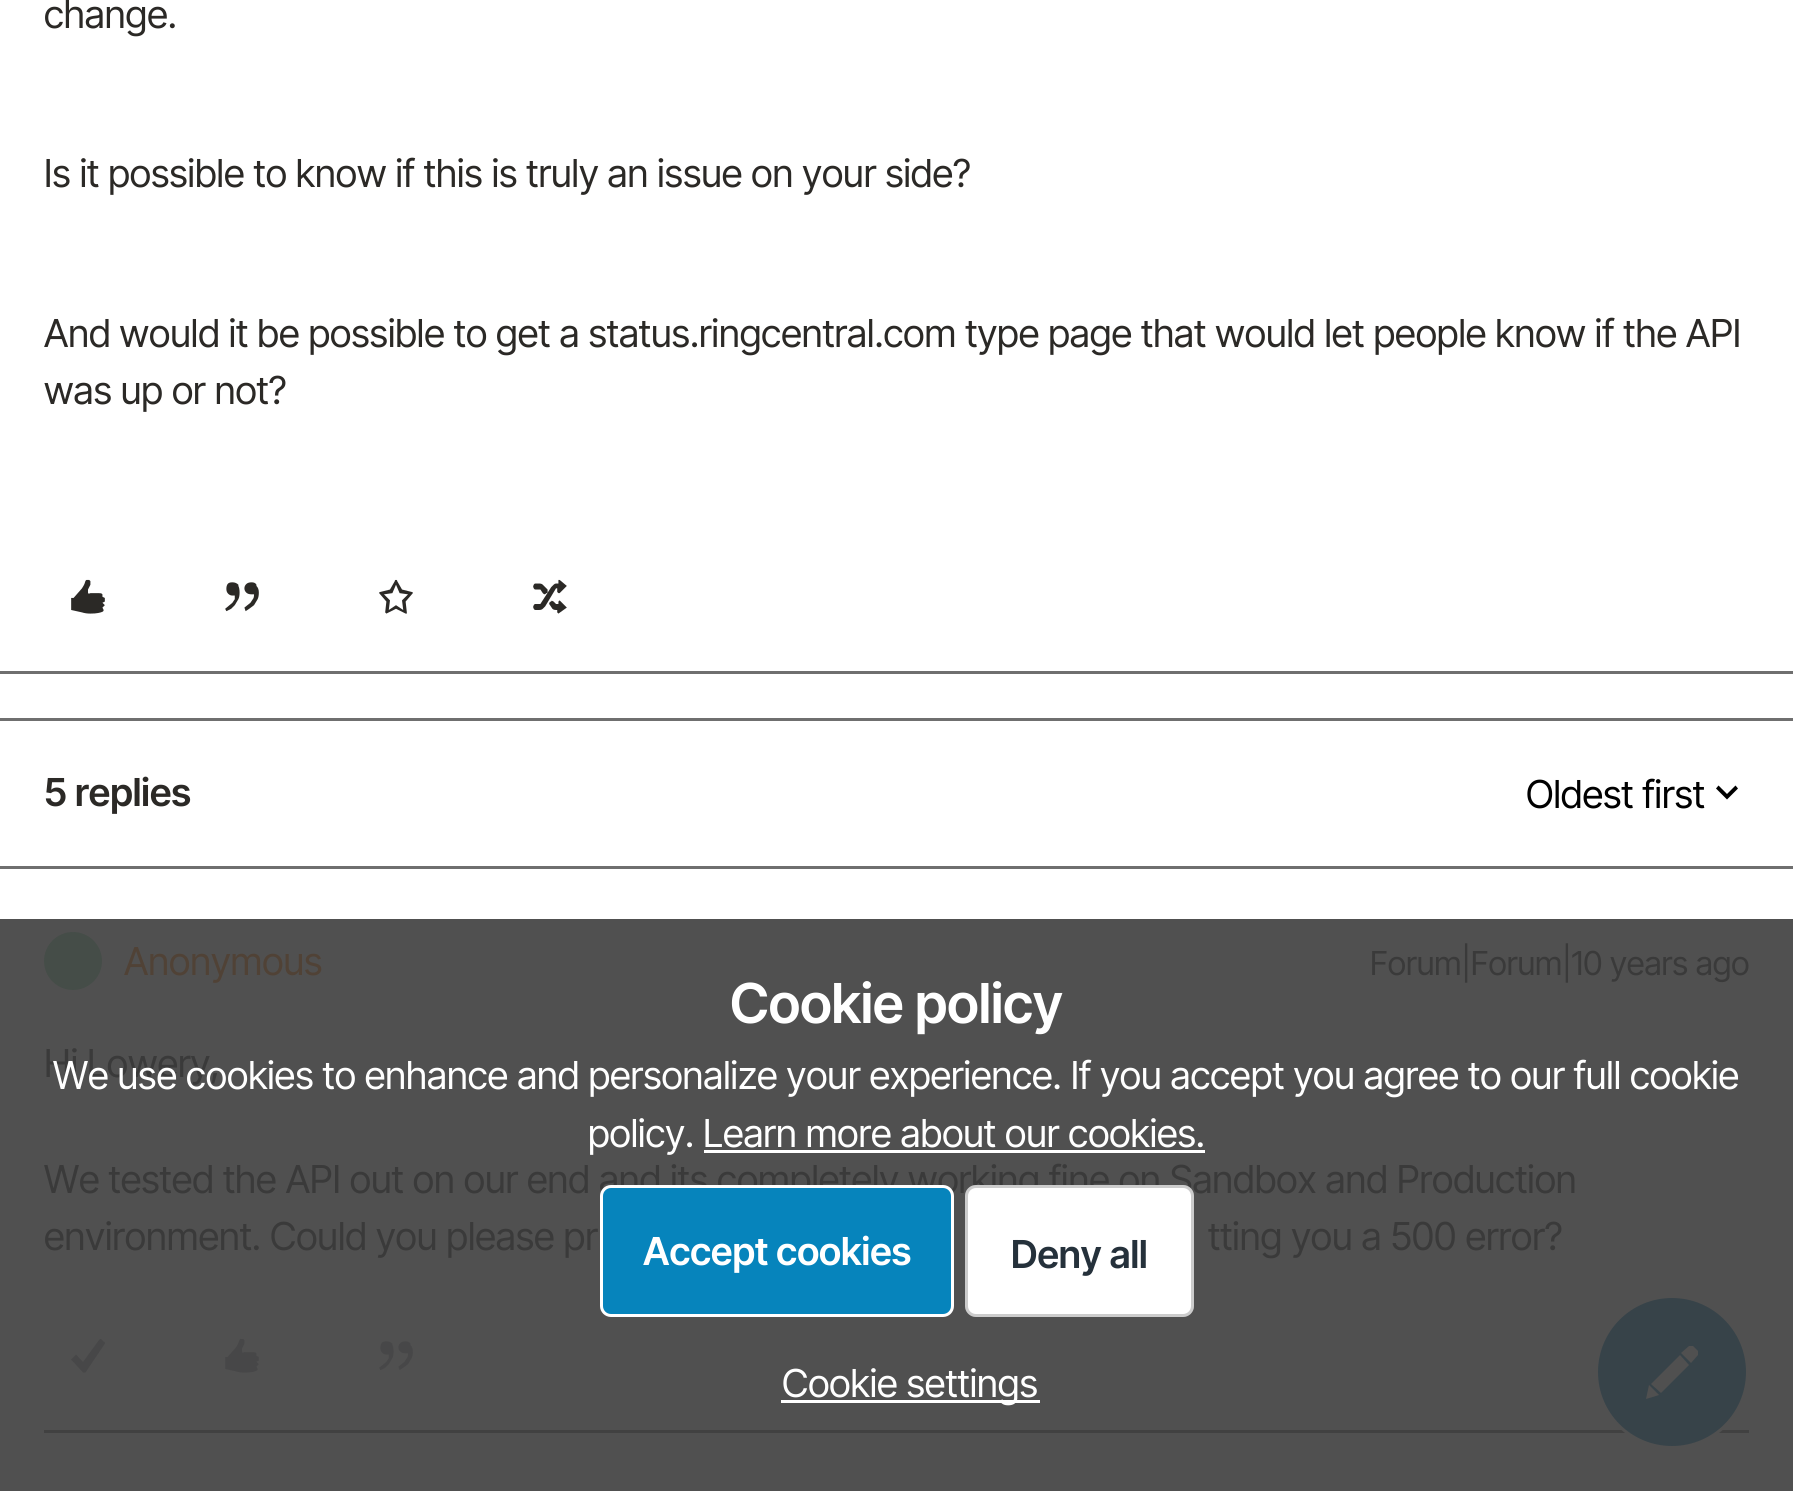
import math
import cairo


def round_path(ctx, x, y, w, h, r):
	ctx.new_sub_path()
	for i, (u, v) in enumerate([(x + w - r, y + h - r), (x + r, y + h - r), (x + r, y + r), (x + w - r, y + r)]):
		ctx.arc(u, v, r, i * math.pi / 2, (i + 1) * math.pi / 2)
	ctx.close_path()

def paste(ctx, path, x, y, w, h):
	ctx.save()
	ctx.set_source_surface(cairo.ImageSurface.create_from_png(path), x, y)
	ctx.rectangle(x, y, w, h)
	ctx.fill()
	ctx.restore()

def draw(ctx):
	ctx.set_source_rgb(1, 1, 1)
	ctx.paint()
	ctx.set_source_rgb(0.314, 0.314, 0.314)
	ctx.rectangle(0, 919, 1793, 572)
	ctx.fill()
	ctx.set_source_rgb(0.435, 0.435, 0.435)
	ctx.rectangle(0, 671, 1793, 3)
	ctx.fill()
	ctx.select_font_face('Inter Tight')
	ctx.set_font_size(38.5)
	ctx.set_source_rgb(0.169, 0.161, 0.149)
	for x, y, s in [
		(44, 28, 'change.'),
		(44, 187, 'Is it possible to know if this is truly an issue on your side?'),
		(44, 347, 'And would it be possible to get a status.ringcentral.com type page that would let people know if the API'),
		(44, 404, 'was up or not?'),
	]:
		ctx.move_to(x, y)
		ctx.show_text(s)
	paste(ctx, 'media/1.png', 71, 579, 34, 35)
	paste(ctx, 'media/2.png', 225, 582, 34, 30)
	paste(ctx, 'media/3.png', 379, 579, 34, 35)
	paste(ctx, 'media/4.png', 533, 579, 34, 35)
	ctx.set_source_rgb(0.435, 0.435, 0.435)
	ctx.rectangle(0, 718, 1793, 3)
	ctx.fill()
	ctx.rectangle(0, 866, 1793, 3)
	ctx.fill()
	ctx.select_font_face('Inter Tight SemiBold')
	ctx.set_source_rgb(0.169, 0.161, 0.149)
	ctx.move_to(44, 806)
	ctx.show_text('5 replies')
	ctx.select_font_face('Inter Tight')
	ctx.set_source_rgb(0, 0, 0)
	ctx.move_to(1526, 808)
	ctx.show_text('Oldest first')
	ctx.new_path()
	ctx.move_to(1718.5, 785.5)
	ctx.line_to(1727, 794)
	ctx.line_to(1735.5, 785.5)
	ctx.line_to(1738, 788.5)
	ctx.line_to(1727, 799.5)
	ctx.line_to(1716, 788.5)
	ctx.close_path()
	ctx.fill()
	ctx.set_source_rgb(0.271, 0.302, 0.282)
	ctx.arc(73, 961, 29, 0, 2 * math.pi)
	ctx.fill()
	ctx.set_source_rgb(0.314, 0.259, 0.212)
	ctx.move_to(124, 975)
	ctx.show_text('Anonymous')
	ctx.set_font_size(33)
	ctx.set_source_rgb(0.227, 0.227, 0.227)
	ctx.move_to(1370, 975)
	ctx.show_text('Forum|Forum|10 years ago')
	ctx.set_font_size(38.5)
	for x, y, s in [
		(44, 1077, 'Hi Lowery,'),
		(44, 1193, 'We tested the API out on our end and its completely working fine on Sandbox and Production'),
		(44, 1250, 'environment. Could you please pr'),
		(1208, 1250, 'tting you a 500 error?'),
	]:
		ctx.move_to(x, y)
		ctx.show_text(s)
	ctx.set_source_rgb(0.278, 0.278, 0.282)
	ctx.new_path()
	ctx.move_to(103.5, 1341.5)
	ctx.line_to(101, 1339)
	ctx.line_to(100, 1339)
	ctx.line_to(99, 1340)
	ctx.line_to(83, 1362)
	ctx.line_to(76, 1354.5)
	ctx.line_to(71, 1359.5)
	ctx.line_to(83, 1372.5)
	ctx.line_to(85.5, 1372.5)
	ctx.line_to(105, 1343.5)
	ctx.line_to(105, 1342.5)
	ctx.close_path()
	ctx.fill()
	paste(ctx, 'media/5.png', 225, 1338, 34, 35)
	paste(ctx, 'media/6.png', 379, 1341, 34, 29)
	ctx.set_source_rgb(0.255, 0.255, 0.255)
	ctx.rectangle(44, 1430, 1705, 3)
	ctx.fill()
	ctx.select_font_face('Inter Tight SemiBold')
	ctx.set_font_size(55)
	ctx.set_source_rgb(1, 1, 1)
	ctx.move_to(730, 1023)
	ctx.show_text('Cookie policy')
	ctx.select_font_face('Inter Tight')
	ctx.set_font_size(38.5)
	ctx.move_to(53, 1089)
	ctx.show_text('We use cookies to enhance and personalize your experience. If you accept you agree to our full cookie')
	ctx.move_to(588, 1147)
	ctx.show_text('policy. Learn more about our cookies.')
	ctx.rectangle(704, 1150, 501, 3)
	ctx.fill()
	ctx.set_source_rgb(0.024, 0.518, 0.737)
	round_path(ctx, 601.5, 1186.5, 351, 129, 9.5)
	ctx.fill_preserve()
	ctx.set_source_rgb(1, 1, 1)
	ctx.set_line_width(3)
	ctx.stroke()
	ctx.select_font_face('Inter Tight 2 SemiBold')
	ctx.move_to(643, 1265)
	ctx.show_text('Accept cookies')
	round_path(ctx, 965, 1185, 229, 132, 11)
	ctx.fill()
	round_path(ctx, 966.5, 1186.5, 226, 129, 9.5)
	ctx.set_source_rgba(0, 0, 0, 0.2)
	ctx.stroke()
	ctx.set_source_rgb(0.145, 0.192, 0.231)
	ctx.move_to(1011, 1268)
	ctx.show_text('Deny all')
	ctx.set_source_rgb(1, 1, 1)
	ctx.rectangle(781, 1400, 259, 3)
	ctx.fill()
	ctx.select_font_face('Inter Tight')
	ctx.move_to(782, 1397)
	ctx.show_text('Cookie settings')
	ctx.set_source_rgb(0.216, 0.263, 0.286)
	ctx.new_path()
	ctx.arc(1672, 1372, 75.5, 0, 2 * math.pi)
	ctx.fill_preserve()
	ctx.set_source_rgb(0.314, 0.314, 0.314)
	ctx.stroke()
	ctx.new_path()
	ctx.move_to(1651, 1384)
	ctx.line_to(1680, 1355)
	ctx.line_to(1689, 1365)
	ctx.line_to(1661, 1393)
	ctx.close_path()
	ctx.move_to(1689, 1346)
	ctx.line_to(1693, 1346)
	ctx.line_to(1698, 1351)
	ctx.line_to(1698, 1355)
	ctx.line_to(1691, 1363)
	ctx.line_to(1681, 1353)
	ctx.close_path()
	ctx.move_to(1646, 1399)
	ctx.line_to(1649, 1385)
	ctx.line_to(1659, 1395)
	ctx.close_path()
	ctx.fill()


surface = cairo.ImageSurface(cairo.FORMAT_RGB24, 1793, 1491)
ctx = cairo.Context(surface)
options = cairo.FontOptions()
options.set_hint_metrics(cairo.HINT_METRICS_OFF)
options.set_hint_style(cairo.HINT_STYLE_NONE)
ctx.set_font_options(options)
ctx.set_miter_limit(4)
draw(ctx)
surface.write_to_png('image.png')
